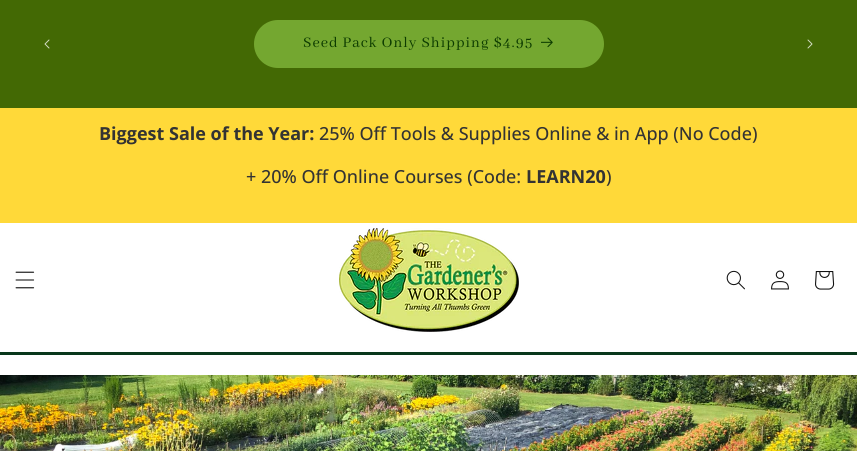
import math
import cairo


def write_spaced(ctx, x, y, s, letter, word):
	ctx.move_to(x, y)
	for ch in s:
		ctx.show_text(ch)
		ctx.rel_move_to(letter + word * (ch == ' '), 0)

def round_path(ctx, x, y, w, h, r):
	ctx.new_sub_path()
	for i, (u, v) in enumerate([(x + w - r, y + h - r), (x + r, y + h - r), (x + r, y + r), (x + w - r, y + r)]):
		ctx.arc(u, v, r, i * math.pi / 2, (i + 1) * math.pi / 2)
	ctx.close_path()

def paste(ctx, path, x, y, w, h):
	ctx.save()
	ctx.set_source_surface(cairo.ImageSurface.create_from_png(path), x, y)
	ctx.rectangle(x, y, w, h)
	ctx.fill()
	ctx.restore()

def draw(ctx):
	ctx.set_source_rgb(1, 1, 1)
	ctx.paint()
	ctx.set_source_rgb(0.263, 0.412, 0.016)
	ctx.rectangle(0, 0, 857, 108)
	ctx.fill()
	paste(ctx, 'media/1.png', 44, 39, 6, 10)
	ctx.set_source_rgb(0.455, 0.655, 0.188)
	round_path(ctx, 254, 20, 350, 48, 24)
	ctx.fill()
	ctx.select_font_face('Abhaya Libre')
	ctx.set_font_size(16)
	ctx.set_source_rgb(0.051, 0.235, 0)
	write_spaced(ctx, 303, 47, 'Seed Pack Only Shipping $4.95', 1, 0)
	paste(ctx, 'media/2.png', 541, 37, 12, 11)
	paste(ctx, 'media/3.png', 807, 39, 6, 10)
	ctx.set_source_rgb(1, 0.851, 0.224)
	ctx.rectangle(0, 108, 857, 115)
	ctx.fill()
	ctx.select_font_face('Open Sans', cairo.FONT_SLANT_NORMAL, cairo.FONT_WEIGHT_BOLD)
	ctx.set_font_size(18)
	ctx.set_source_rgb(0.2, 0.2, 0.2)
	ctx.move_to(99, 140)
	ctx.show_text('Biggest Sale of the Year:')
	ctx.select_font_face('Open Sans Medium')
	ctx.move_to(319, 140)
	ctx.show_text('25% Off Tools & Supplies Online & in App (No Code)')
	ctx.move_to(246, 183)
	ctx.show_text('+ 20% Off Online Courses (Code:')
	ctx.select_font_face('Open Sans', cairo.FONT_SLANT_NORMAL, cairo.FONT_WEIGHT_BOLD)
	ctx.move_to(526, 183)
	ctx.show_text('LEARN20')
	ctx.select_font_face('Open Sans Medium')
	ctx.move_to(606, 183)
	ctx.show_text(')')
	ctx.set_source_rgb(0.035, 0.216, 0.106)
	ctx.rectangle(0, 352, 857, 3)
	ctx.fill()
	paste(ctx, 'media/4.png', 15, 271, 20, 18)
	paste(ctx, 'media/5.png', 339, 228, 180, 104)
	paste(ctx, 'media/6.png', 726, 270, 19, 20)
	paste(ctx, 'media/7.png', 771, 270, 18, 20)
	paste(ctx, 'media/8.png', 815, 271, 20, 19)
	paste(ctx, 'media/9.png', 0, 375, 857, 76)


surface = cairo.ImageSurface(cairo.FORMAT_RGB24, 857, 451)
ctx = cairo.Context(surface)
options = cairo.FontOptions()
options.set_hint_metrics(cairo.HINT_METRICS_OFF)
options.set_hint_style(cairo.HINT_STYLE_NONE)
ctx.set_font_options(options)
ctx.set_miter_limit(4)
draw(ctx)
surface.write_to_png('image.png')
